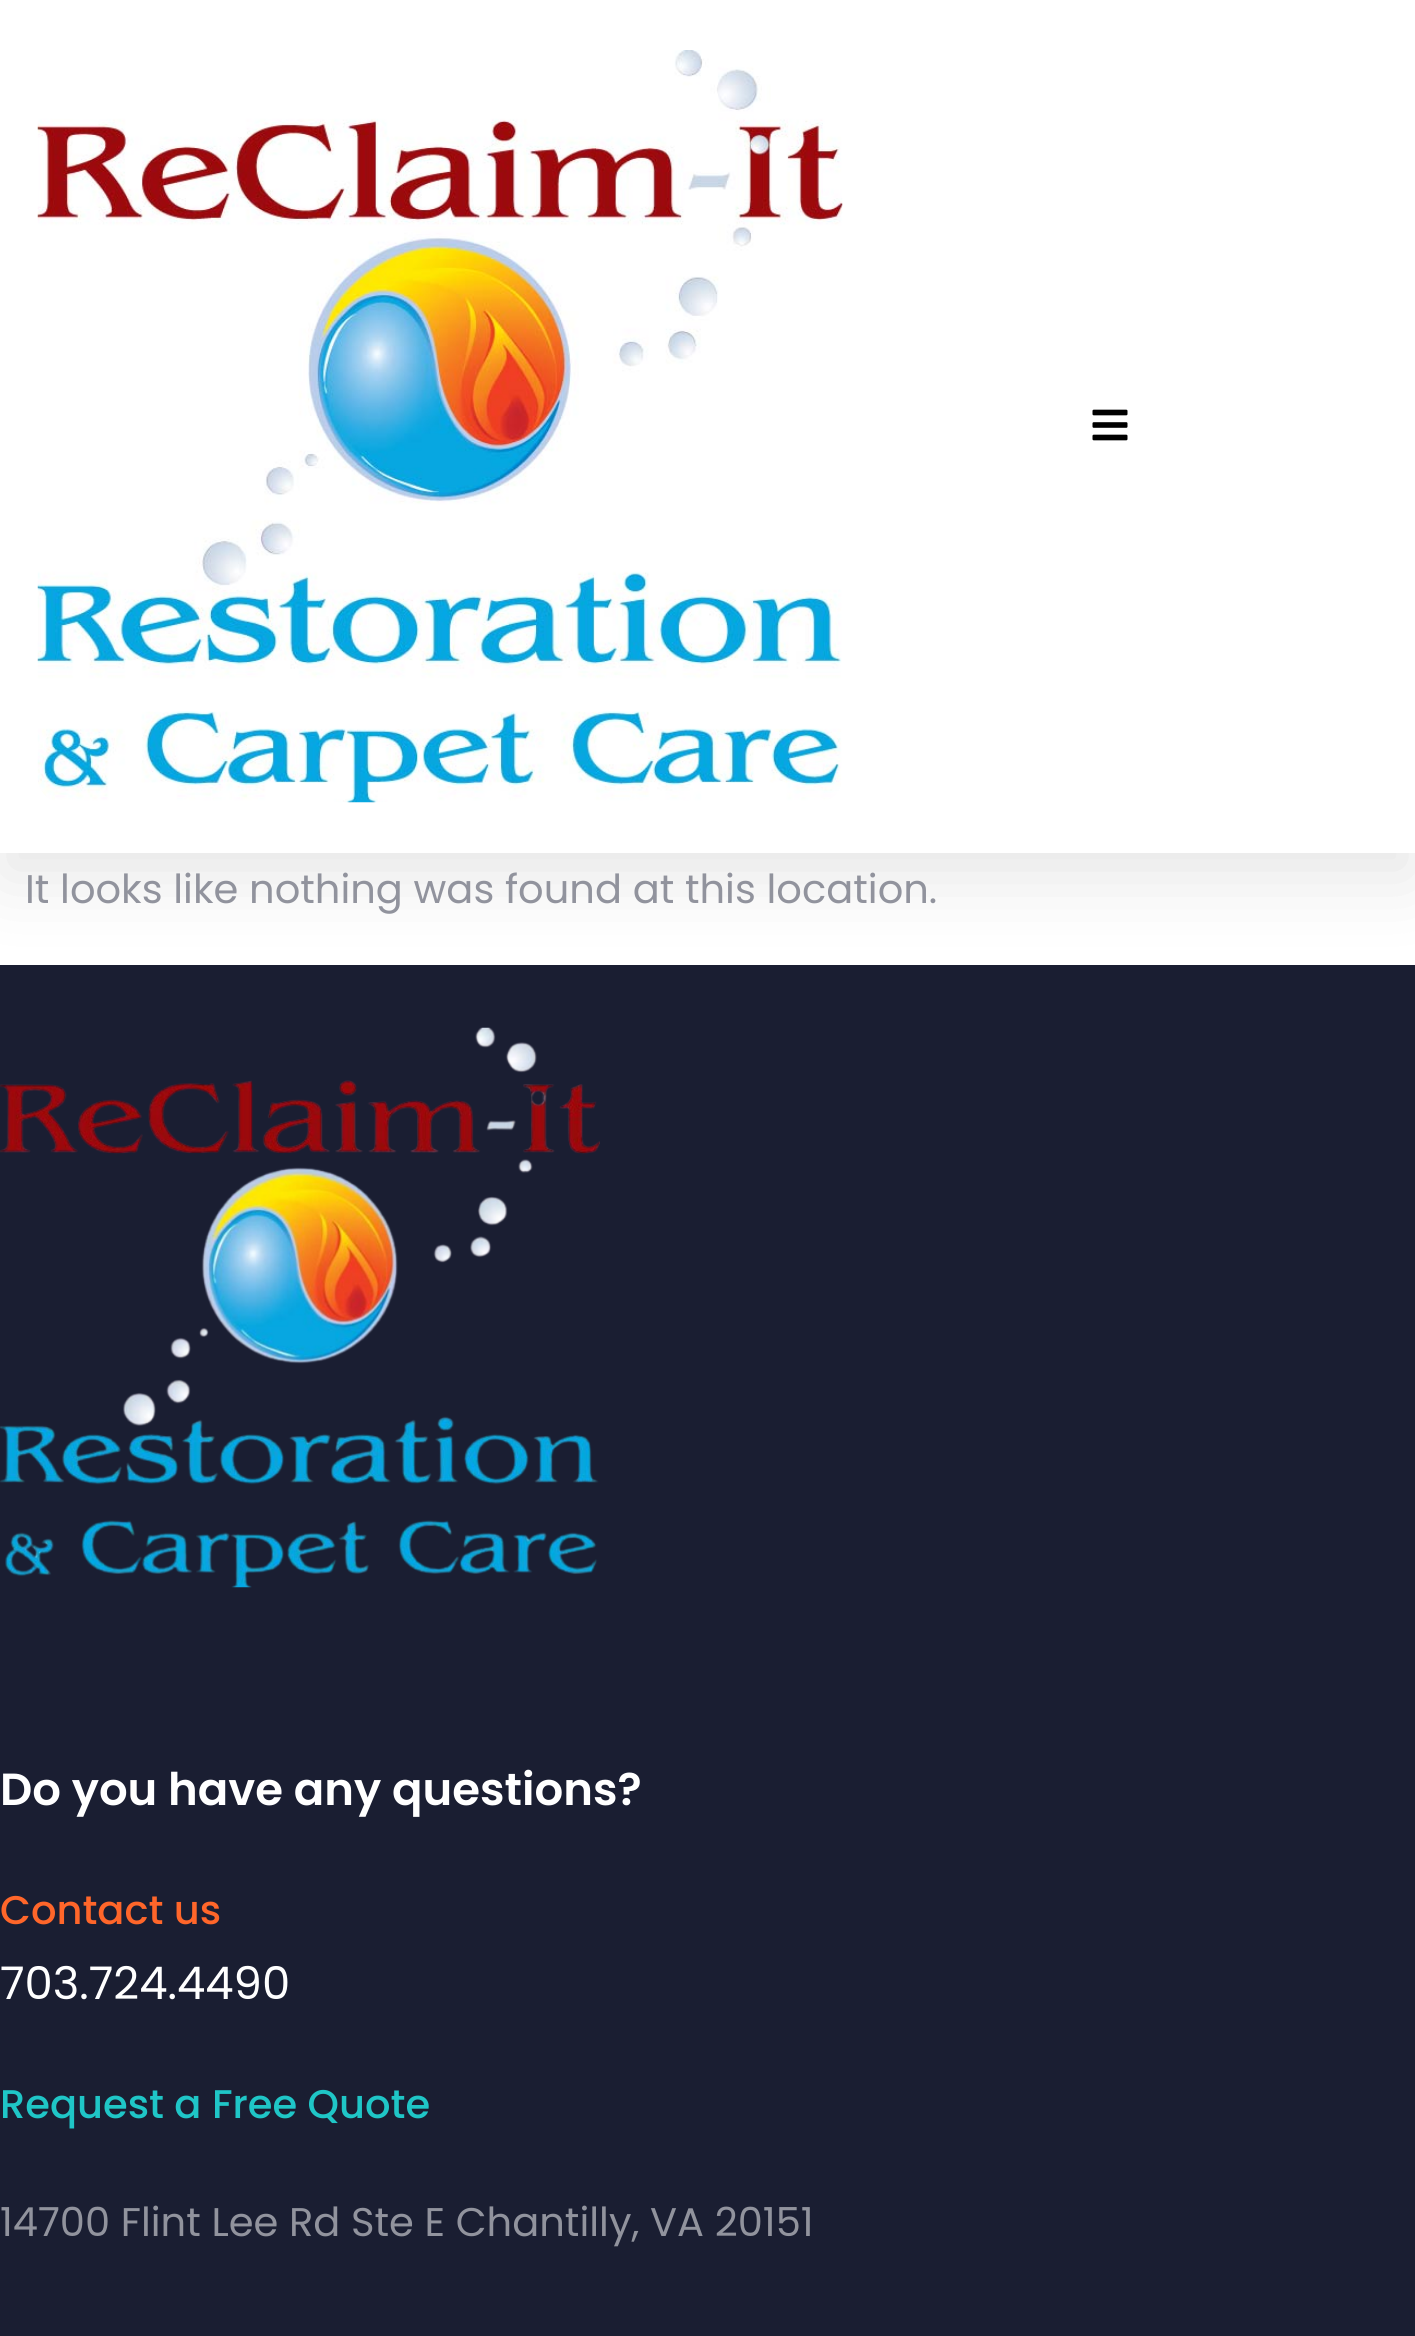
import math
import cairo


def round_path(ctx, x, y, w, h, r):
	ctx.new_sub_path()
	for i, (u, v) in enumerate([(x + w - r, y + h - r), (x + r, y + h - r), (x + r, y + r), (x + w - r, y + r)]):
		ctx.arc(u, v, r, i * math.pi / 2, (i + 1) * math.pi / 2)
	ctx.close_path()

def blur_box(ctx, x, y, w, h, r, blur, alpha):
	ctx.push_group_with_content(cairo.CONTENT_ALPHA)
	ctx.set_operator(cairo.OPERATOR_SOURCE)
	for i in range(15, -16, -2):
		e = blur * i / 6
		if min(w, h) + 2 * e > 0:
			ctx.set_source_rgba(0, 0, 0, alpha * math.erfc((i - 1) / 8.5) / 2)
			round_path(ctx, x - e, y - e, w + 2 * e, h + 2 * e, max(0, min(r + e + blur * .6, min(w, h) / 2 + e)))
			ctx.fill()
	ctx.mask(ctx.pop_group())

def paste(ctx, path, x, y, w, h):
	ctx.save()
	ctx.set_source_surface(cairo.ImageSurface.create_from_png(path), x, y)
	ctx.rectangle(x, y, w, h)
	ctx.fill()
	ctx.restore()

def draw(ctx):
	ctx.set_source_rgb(1, 1, 1)
	ctx.paint()
	ctx.set_source_rgb(0, 0, 0)
	blur_box(ctx, 0, 25, 1415, 853, 0, 37.5, 0.1)
	ctx.set_source_rgb(1, 1, 1)
	ctx.rectangle(0, 0, 1415, 853)
	ctx.fill()
	paste(ctx, 'media/1.png', 37, 50, 806, 753)
	paste(ctx, 'media/2.png', 1092, 409, 36, 32)
	ctx.select_font_face('Poppins')
	ctx.set_font_size(40)
	ctx.set_source_rgb(0.569, 0.576, 0.616)
	ctx.move_to(25, 903)
	ctx.show_text('It looks like nothing was found at this location.')
	ctx.set_source_rgb(0.102, 0.118, 0.196)
	ctx.rectangle(0, 965, 1415, 1371)
	ctx.fill()
	paste(ctx, 'media/3.png', 0, 1027, 600, 561)
	ctx.select_font_face('Poppins SemiBold')
	ctx.set_font_size(45)
	ctx.set_source_rgb(1, 1, 1)
	ctx.move_to(0, 1805)
	ctx.show_text('Do you have any questions?')
	ctx.select_font_face('Poppins Medium')
	ctx.set_font_size(40)
	ctx.set_source_rgb(1, 0.4, 0.165)
	ctx.move_to(0, 1924)
	ctx.show_text('Contact us')
	ctx.select_font_face('Poppins')
	ctx.set_font_size(45)
	ctx.set_source_rgb(1, 1, 1)
	ctx.move_to(0, 1999)
	ctx.show_text('703.724.4490')
	ctx.select_font_face('Poppins Medium')
	ctx.set_font_size(40)
	ctx.set_source_rgb(0.122, 0.776, 0.78)
	ctx.move_to(0, 2118)
	ctx.show_text('Request a Free Quote')
	ctx.select_font_face('Poppins')
	ctx.set_source_rgb(0.569, 0.576, 0.616)
	ctx.move_to(0, 2236)
	ctx.show_text('14700 Flint Lee Rd Ste E Chantilly, VA 20151')


surface = cairo.ImageSurface(cairo.FORMAT_RGB24, 1415, 2336)
ctx = cairo.Context(surface)
options = cairo.FontOptions()
options.set_hint_metrics(cairo.HINT_METRICS_OFF)
options.set_hint_style(cairo.HINT_STYLE_NONE)
ctx.set_font_options(options)
ctx.set_miter_limit(4)
draw(ctx)
surface.write_to_png('image.png')
